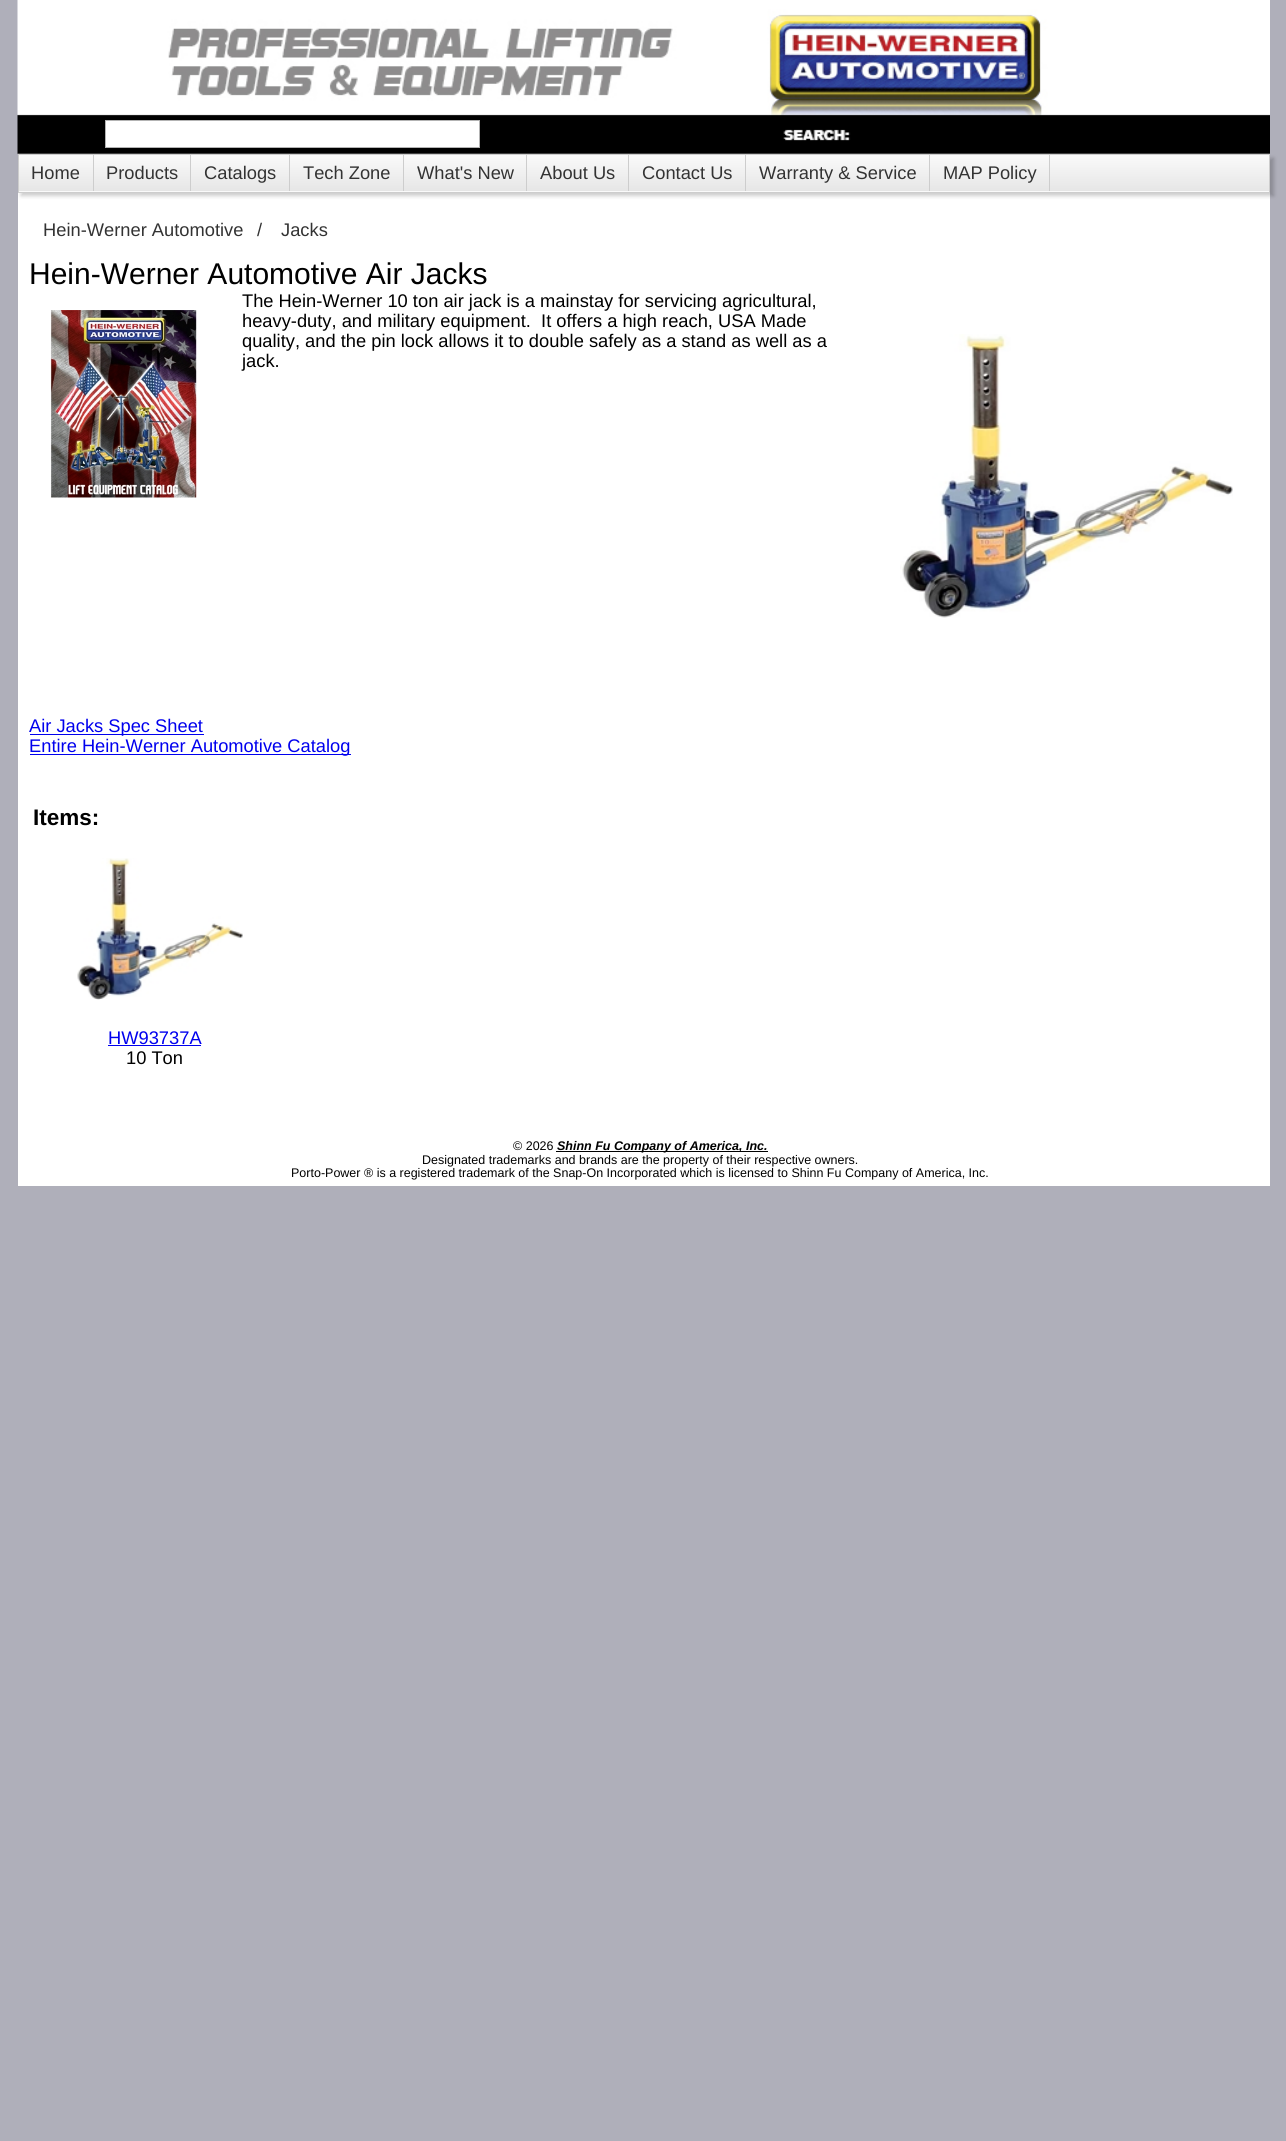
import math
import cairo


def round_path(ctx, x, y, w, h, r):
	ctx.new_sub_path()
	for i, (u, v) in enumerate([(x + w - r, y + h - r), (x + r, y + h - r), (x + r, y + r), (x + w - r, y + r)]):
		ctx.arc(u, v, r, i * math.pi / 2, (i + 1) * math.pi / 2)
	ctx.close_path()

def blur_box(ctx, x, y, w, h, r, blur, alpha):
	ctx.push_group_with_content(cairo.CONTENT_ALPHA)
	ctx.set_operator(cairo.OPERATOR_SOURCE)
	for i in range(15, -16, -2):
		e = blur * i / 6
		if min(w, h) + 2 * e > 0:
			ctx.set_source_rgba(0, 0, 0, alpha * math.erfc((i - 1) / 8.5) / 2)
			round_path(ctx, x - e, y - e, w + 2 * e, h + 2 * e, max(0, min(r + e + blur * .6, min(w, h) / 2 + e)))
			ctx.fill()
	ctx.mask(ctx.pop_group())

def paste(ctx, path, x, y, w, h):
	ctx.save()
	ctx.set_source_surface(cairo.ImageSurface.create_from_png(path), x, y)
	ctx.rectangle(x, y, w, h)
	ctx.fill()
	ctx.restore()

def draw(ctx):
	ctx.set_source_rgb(0.686, 0.686, 0.729)
	ctx.paint()
	ctx.set_source_rgb(1, 1, 1)
	ctx.rectangle(18, 153, 1252, 1033)
	ctx.fill()
	paste(ctx, 'media/1.png', 17, 0, 1253, 154)
	ctx.rectangle(105.5, 120.5, 374, 27)
	ctx.fill_preserve()
	ctx.set_source_rgb(0.702, 0.702, 0.702)
	ctx.set_line_width(1)
	ctx.stroke()
	ctx.set_source_rgb(0, 0, 0)
	blur_box(ctx, 21, 158, 1253, 38, 0, 2, 0.2)
	gradient = cairo.LinearGradient(644, 155, 644, 191)
	gradient.add_color_stop_rgba(0, 0.98, 0.98, 0.98, 1)
	gradient.add_color_stop_rgba(1, 0.902, 0.902, 0.902, 1)
	ctx.set_source(gradient)
	ctx.rectangle(19, 155, 1250, 36)
	ctx.fill()
	gradient = cairo.LinearGradient(644, 191, 644, 228)
	gradient.add_color_stop_rgba(0, 0.98, 0.98, 0.98, 1)
	gradient.add_color_stop_rgba(1, 0.902, 0.902, 0.902, 1)
	ctx.set_source(gradient)
	ctx.rectangle(18, 191, 1252, 1)
	ctx.fill()
	ctx.rectangle(18.5, 154.5, 1251, 38)
	ctx.set_source_rgb(0.804, 0.804, 0.804)
	ctx.stroke()
	ctx.rectangle(93, 155, 1, 36)
	ctx.fill()
	ctx.select_font_face('Liberation Sans')
	ctx.set_font_size(18.3)
	ctx.set_source_rgb(0.2, 0.2, 0.2)
	ctx.move_to(31, 179)
	ctx.show_text('Home')
	ctx.set_source_rgb(0.804, 0.804, 0.804)
	ctx.rectangle(190, 155, 1, 36)
	ctx.fill()
	ctx.set_source_rgb(0.2, 0.2, 0.2)
	ctx.move_to(106, 179)
	ctx.show_text('Products')
	ctx.set_source_rgb(0.804, 0.804, 0.804)
	ctx.rectangle(289, 155, 1, 36)
	ctx.fill()
	ctx.set_source_rgb(0.2, 0.2, 0.2)
	ctx.move_to(204, 179)
	ctx.show_text('Catalogs')
	ctx.set_source_rgb(0.804, 0.804, 0.804)
	ctx.rectangle(403, 155, 1, 36)
	ctx.fill()
	ctx.set_source_rgb(0.2, 0.2, 0.2)
	ctx.move_to(303, 179)
	ctx.show_text('Tech Zone')
	ctx.set_source_rgb(0.804, 0.804, 0.804)
	ctx.rectangle(526, 155, 1, 36)
	ctx.fill()
	ctx.set_source_rgb(0.2, 0.2, 0.2)
	ctx.move_to(417, 179)
	ctx.show_text('What\'s New')
	ctx.set_source_rgb(0.804, 0.804, 0.804)
	ctx.rectangle(628, 155, 1, 36)
	ctx.fill()
	ctx.set_source_rgb(0.2, 0.2, 0.2)
	ctx.move_to(540, 179)
	ctx.show_text('About Us')
	ctx.set_source_rgb(0.804, 0.804, 0.804)
	ctx.rectangle(745, 155, 1, 36)
	ctx.fill()
	ctx.set_source_rgb(0.2, 0.2, 0.2)
	ctx.move_to(642, 179)
	ctx.show_text('Contact Us')
	ctx.set_source_rgb(0.804, 0.804, 0.804)
	ctx.rectangle(929, 155, 1, 36)
	ctx.fill()
	ctx.set_source_rgb(0.2, 0.2, 0.2)
	ctx.move_to(759, 179)
	ctx.show_text('Warranty & Service')
	ctx.set_source_rgb(0.804, 0.804, 0.804)
	ctx.rectangle(1049, 155, 1, 36)
	ctx.fill()
	ctx.set_source_rgb(0.2, 0.2, 0.2)
	for x, y, s in [
		(943, 179, 'MAP Policy'),
		(43, 236, 'Hein-Werner Automotive'),
		(257, 236, '/'),
		(281, 236, 'Jacks'),
	]:
		ctx.move_to(x, y)
		ctx.show_text(s)
	ctx.set_font_size(30)
	ctx.set_source_rgb(0, 0, 0)
	ctx.move_to(29, 284)
	ctx.show_text('Hein-Werner Automotive Air Jacks')
	ctx.set_font_size(18.3)
	ctx.move_to(242, 307)
	ctx.show_text('The Hein-Werner 10 ton air jack is a mainstay for servicing agricultural,')
	paste(ctx, 'media/2.png', 50, 310, 147, 188)
	ctx.move_to(242, 327)
	ctx.show_text('heavy-duty, and military equipment.  It offers a high reach, USA Made')
	ctx.move_to(242, 347)
	ctx.show_text('quality, and the pin lock allows it to double safely as a stand as well as a')
	paste(ctx, 'media/3.png', 900, 334, 333, 284)
	ctx.move_to(242, 367)
	ctx.show_text('jack.')
	ctx.set_source_rgb(0, 0, 0.933)
	ctx.rectangle(30, 734, 174, 1)
	ctx.fill()
	ctx.move_to(29, 732)
	ctx.show_text('Air Jacks Spec Sheet')
	ctx.rectangle(30, 754, 321, 1)
	ctx.fill()
	ctx.move_to(29, 752)
	ctx.show_text('Entire Hein-Werner Automotive Catalog')
	ctx.select_font_face('Liberation Sans', cairo.FONT_SLANT_NORMAL, cairo.FONT_WEIGHT_BOLD)
	ctx.set_font_size(22.5)
	ctx.set_source_rgb(0, 0, 0)
	ctx.move_to(33, 825)
	ctx.show_text('Items:')
	paste(ctx, 'media/4.png', 77, 858, 166, 142)
	ctx.select_font_face('Liberation Sans')
	ctx.set_font_size(18.3)
	ctx.set_source_rgb(0, 0, 0.933)
	ctx.move_to(108, 1044)
	ctx.show_text('HW93737A')
	ctx.rectangle(108, 1045, 93, 1)
	ctx.fill()
	ctx.set_source_rgb(0, 0, 0)
	ctx.move_to(126, 1064)
	ctx.show_text('10 Ton')
	ctx.set_font_size(12.5)
	ctx.move_to(513, 1150)
	ctx.show_text('© 2026')
	ctx.rectangle(556, 1151, 212, 1)
	ctx.fill()
	ctx.select_font_face('Liberation Sans', cairo.FONT_SLANT_ITALIC, cairo.FONT_WEIGHT_BOLD)
	ctx.move_to(557, 1150)
	ctx.show_text('Shinn Fu Company of America, Inc.')
	ctx.select_font_face('Liberation Sans')
	ctx.move_to(422, 1164)
	ctx.show_text('Designated trademarks and brands are the property of their respective owners.')
	ctx.move_to(291, 1177)
	ctx.show_text('Porto-Power ® is a registered trademark of the Snap-On Incorporated which is licensed to Shinn Fu Company of America, Inc.')


surface = cairo.ImageSurface(cairo.FORMAT_RGB24, 1286, 2141)
ctx = cairo.Context(surface)
options = cairo.FontOptions()
options.set_hint_metrics(cairo.HINT_METRICS_OFF)
options.set_hint_style(cairo.HINT_STYLE_NONE)
ctx.set_font_options(options)
ctx.set_miter_limit(4)
draw(ctx)
surface.write_to_png('image.png')
